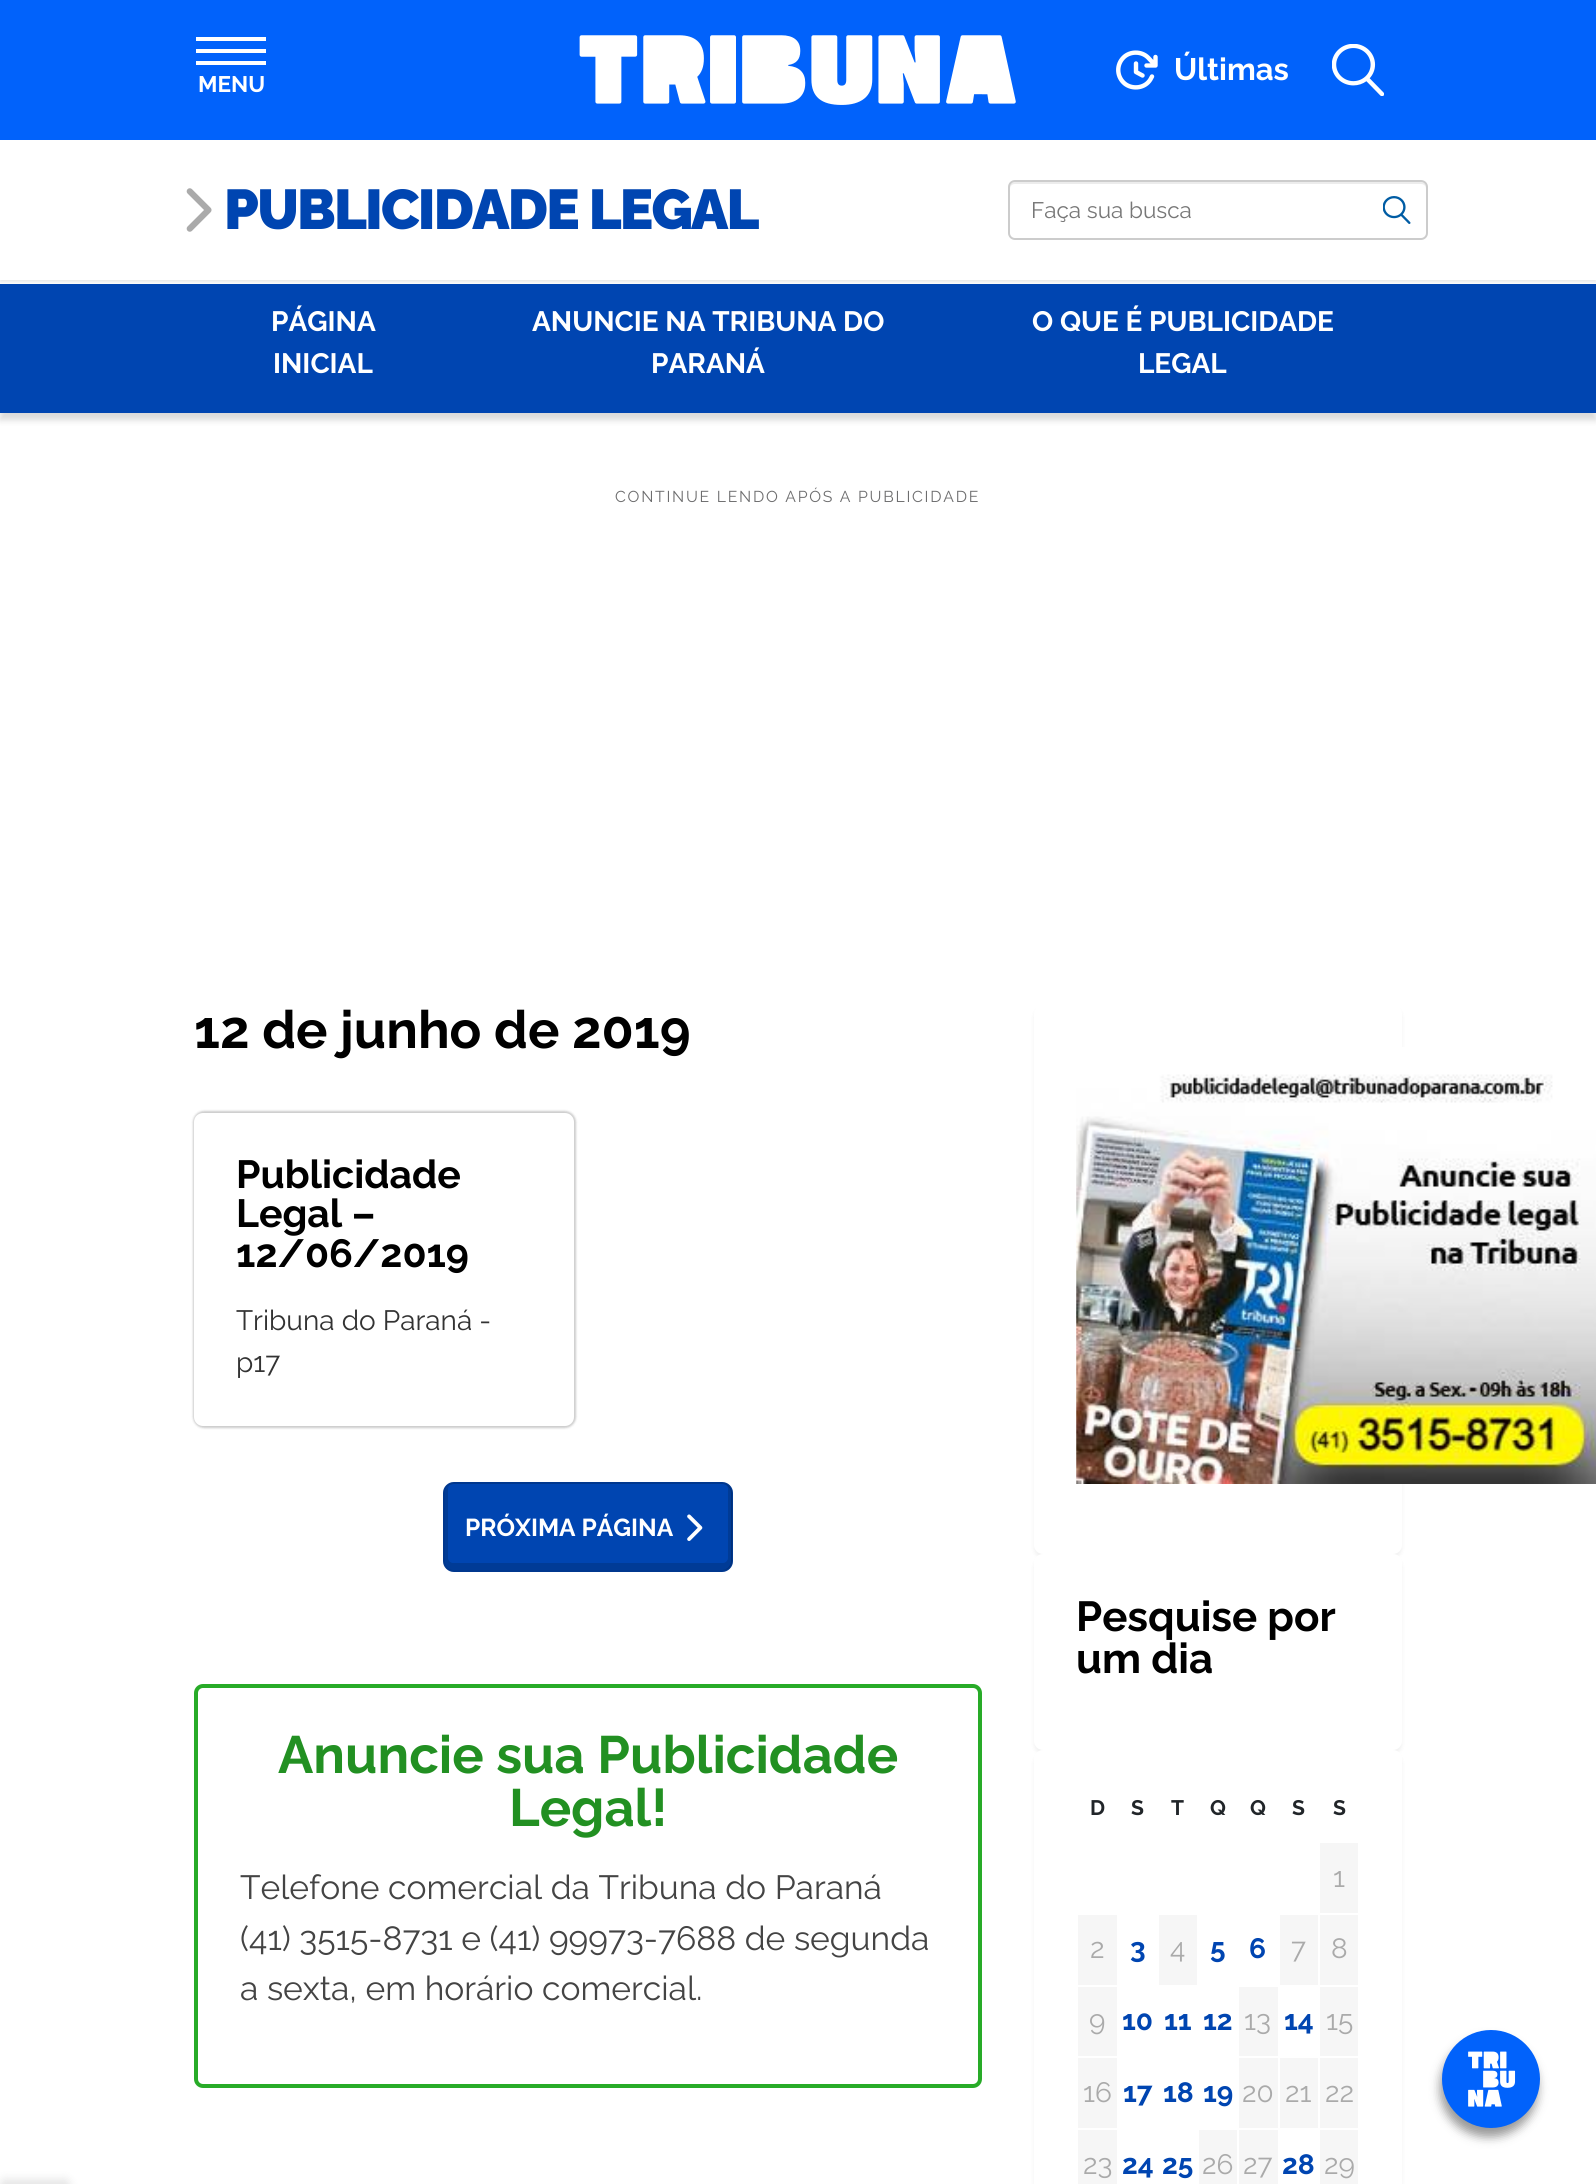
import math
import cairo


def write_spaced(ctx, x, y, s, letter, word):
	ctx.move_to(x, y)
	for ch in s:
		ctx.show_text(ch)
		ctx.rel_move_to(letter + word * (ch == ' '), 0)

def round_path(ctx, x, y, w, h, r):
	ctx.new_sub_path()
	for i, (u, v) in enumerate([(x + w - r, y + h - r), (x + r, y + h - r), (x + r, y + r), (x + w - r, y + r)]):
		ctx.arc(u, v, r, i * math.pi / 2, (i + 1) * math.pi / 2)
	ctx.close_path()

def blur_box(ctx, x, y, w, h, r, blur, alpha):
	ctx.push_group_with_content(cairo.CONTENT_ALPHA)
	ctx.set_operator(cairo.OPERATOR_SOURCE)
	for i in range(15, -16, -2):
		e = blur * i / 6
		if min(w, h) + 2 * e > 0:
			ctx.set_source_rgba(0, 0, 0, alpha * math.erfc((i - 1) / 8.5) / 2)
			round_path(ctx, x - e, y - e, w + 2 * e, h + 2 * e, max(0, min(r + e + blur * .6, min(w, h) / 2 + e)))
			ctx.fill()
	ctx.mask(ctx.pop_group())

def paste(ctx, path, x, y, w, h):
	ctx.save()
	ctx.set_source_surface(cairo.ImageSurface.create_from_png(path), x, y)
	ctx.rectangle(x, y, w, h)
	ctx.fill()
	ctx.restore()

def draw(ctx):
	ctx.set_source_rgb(1, 1, 1)
	ctx.paint()
	ctx.save()
	ctx.rectangle(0, 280, 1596, 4)
	ctx.clip()
	ctx.set_source_rgb(0, 0, 0)
	blur_box(ctx, 0, 2, 1596, 280, 0, 2, 0.1)
	ctx.restore()
	ctx.set_source_rgb(0.004, 0.384, 0.984)
	ctx.rectangle(0, 0, 1596, 140)
	ctx.fill()
	paste(ctx, 'media/1.png', 579, 35, 437, 70)
	ctx.new_path()
	ctx.move_to(1155.5, 65.5)
	ctx.line_to(1146.5, 65.5)
	ctx.move_to(1155.5, 65.5)
	ctx.line_to(1155.5, 57)
	ctx.move_to(1155.5, 65.5)
	ctx.line_to(1148, 57.5)
	ctx.curve_to(1141.5, 51, 1130, 51, 1123.5, 57.5)
	ctx.curve_to(1116.5, 64.5, 1116.5, 75.5, 1123.5, 82.5)
	ctx.curve_to(1130, 89, 1141.5, 89, 1148, 82.5)
	ctx.curve_to(1150, 80.5, 1151, 78.5, 1152, 76.5)
	ctx.move_to(1136, 63.5)
	ctx.line_to(1136, 72)
	ctx.line_to(1142.5, 75.5)
	ctx.set_source_rgb(1, 1, 1)
	ctx.set_line_width(4.4)
	ctx.set_line_cap(cairo.LINE_CAP_ROUND)
	ctx.set_line_join(cairo.LINE_JOIN_ROUND)
	ctx.stroke()
	ctx.select_font_face('Raleway', cairo.FONT_SLANT_NORMAL, cairo.FONT_WEIGHT_BOLD)
	ctx.set_font_size(31)
	ctx.move_to(1174, 80)
	ctx.show_text('Últimas')
	paste(ctx, 'media/2.png', 1332, 44, 52, 52)
	ctx.rectangle(196, 49, 70, 4)
	ctx.rectangle(196, 37, 70, 4)
	ctx.rectangle(196, 61, 70, 4)
	ctx.fill()
	ctx.set_font_size(22.5)
	ctx.move_to(198, 92)
	ctx.show_text('MENU')
	paste(ctx, 'media/3.png', 186, 188, 26, 44)
	ctx.select_font_face('Raleway Black')
	ctx.set_font_size(56)
	ctx.set_source_rgb(0, 0.271, 0.694)
	write_spaced(ctx, 224, 229, 'PUBLICIDADE LEGAL', -1.75, 0)
	ctx.set_source_rgb(0.925, 0.925, 0.925)
	ctx.new_path()
	ctx.move_to(1015, 184)
	ctx.line_to(1421, 184)
	ctx.curve_to(1424, 184, 1426, 186, 1426, 189)
	ctx.line_to(1426, 187)
	ctx.curve_to(1426, 184, 1424, 182, 1421, 182)
	ctx.line_to(1015, 182)
	ctx.curve_to(1012, 182, 1010, 184, 1010, 187)
	ctx.line_to(1010, 189)
	ctx.curve_to(1010, 186, 1012, 184, 1015, 184)
	ctx.close_path()
	ctx.fill()
	round_path(ctx, 1009, 181, 418, 58, 6)
	ctx.set_source_rgb(0.8, 0.8, 0.8)
	ctx.set_line_width(2)
	ctx.set_line_cap(cairo.LINE_CAP_BUTT)
	ctx.set_line_join(cairo.LINE_JOIN_MITER)
	ctx.stroke()
	ctx.select_font_face('Raleway')
	ctx.set_font_size(22.5)
	ctx.set_source_rgb(0.467, 0.467, 0.467)
	ctx.move_to(1031, 218)
	ctx.show_text('Faça sua busca')
	paste(ctx, 'media/4.png', 1383, 196, 28, 28)
	ctx.set_source_rgb(0, 0, 0)
	blur_box(ctx, 0, 291, 1596, 129, 0, 3.5, 0.15)
	ctx.set_source_rgb(0, 0.271, 0.694)
	ctx.rectangle(0, 284, 1596, 129)
	ctx.fill()
	ctx.select_font_face('Raleway', cairo.FONT_SLANT_NORMAL, cairo.FONT_WEIGHT_BOLD)
	ctx.set_font_size(28)
	ctx.set_source_rgb(1, 1, 1)
	for x, y, s in [
		(271, 331, 'PÁGINA'),
		(273, 373, 'INICIAL'),
		(532, 331, 'ANUNCIE NA TRIBUNA DO'),
		(651, 373, 'PARANÁ'),
		(1032, 331, 'O QUE É PUBLICIDADE'),
		(1138, 373, 'LEGAL'),
	]:
		ctx.move_to(x, y)
		ctx.show_text(s)
	ctx.select_font_face('Raleway')
	ctx.set_font_size(15.75)
	ctx.set_source_rgb(0.427, 0.427, 0.431)
	write_spaced(ctx, 615, 502, 'CONTINUE LENDO APÓS A PUBLICIDADE', 1.75, 0)
	ctx.select_font_face('Raleway', cairo.FONT_SLANT_NORMAL, cairo.FONT_WEIGHT_BOLD)
	ctx.set_font_size(52.5)
	ctx.set_source_rgb(0, 0, 0)
	ctx.move_to(194, 1048)
	ctx.show_text('12 de junho de 2019')
	ctx.set_source_rgb(0, 0, 0)
	blur_box(ctx, 193, 1111, 383, 317, 11, 1, 0.2)
	ctx.set_source_rgb(1, 1, 1)
	round_path(ctx, 194, 1113, 380, 313, 9)
	ctx.fill()
	ctx.set_font_size(39.25)
	ctx.set_source_rgb(0, 0, 0)
	for x, y, s in [
		(236, 1188, 'Publicidade'),
		(236, 1227, 'Legal –'),
		(236, 1267, '12/06/2019'),
	]:
		ctx.move_to(x, y)
		ctx.show_text(s)
	ctx.select_font_face('Raleway')
	ctx.set_font_size(28)
	ctx.set_source_rgb(0.2, 0.2, 0.2)
	ctx.move_to(236, 1330)
	ctx.show_text('Tribuna do Paraná -')
	ctx.move_to(236, 1372)
	ctx.show_text('p17')
	ctx.set_source_rgb(0, 0.271, 0.694)
	round_path(ctx, 443, 1482, 290, 90, 11)
	ctx.fill()
	ctx.set_source_rgb(0, 0.231, 0.588)
	ctx.new_path()
	ctx.move_to(732, 1493)
	ctx.curve_to(732, 1488, 728, 1484, 723, 1484)
	ctx.curve_to(726, 1484, 728, 1486, 728, 1489)
	ctx.line_to(728, 1558)
	ctx.curve_to(728, 1560, 726, 1563, 723, 1563)
	ctx.line_to(453, 1563)
	ctx.curve_to(450, 1563, 448, 1560, 448, 1558)
	ctx.line_to(448, 1489)
	ctx.curve_to(448, 1487, 449, 1486, 450, 1485)
	ctx.curve_to(447, 1487, 445, 1490, 445, 1493)
	ctx.line_to(445, 1561)
	ctx.curve_to(445, 1566, 449, 1570, 454, 1570)
	ctx.line_to(723, 1570)
	ctx.curve_to(728, 1570, 732, 1566, 732, 1561)
	ctx.close_path()
	ctx.fill()
	round_path(ctx, 444, 1483, 288, 88, 10)
	ctx.set_source_rgba(0, 0, 0, 0.2)
	ctx.stroke()
	ctx.select_font_face('Raleway', cairo.FONT_SLANT_NORMAL, cairo.FONT_WEIGHT_BOLD)
	ctx.set_font_size(24.5)
	ctx.set_source_rgb(1, 1, 1)
	ctx.move_to(465, 1536)
	ctx.show_text('PRÓXIMA PÁGINA')
	paste(ctx, 'media/5.png', 687, 1514, 16, 27)
	round_path(ctx, 196, 1686, 784, 400, 7)
	ctx.set_source_rgb(0.157, 0.671, 0.157)
	ctx.set_line_width(4)
	ctx.stroke()
	ctx.set_font_size(52.5)
	ctx.set_source_rgb(0.133, 0.565, 0.133)
	ctx.move_to(278, 1773)
	ctx.show_text('Anuncie sua Publicidade')
	ctx.move_to(509, 1826)
	ctx.show_text('Legal!')
	ctx.select_font_face('Raleway')
	ctx.set_font_size(33.6)
	ctx.set_source_rgb(0.267, 0.267, 0.267)
	for x, y, s in [
		(240, 1899, 'Telefone comercial da Tribuna do Paraná'),
		(240, 1950, '(41) 3515-8731 e (41) 99973-7688 de segunda'),
		(240, 2000, 'a sexta, em horário comercial.'),
	]:
		ctx.move_to(x, y)
		ctx.show_text(s)
	ctx.set_source_rgb(0, 0, 0)
	blur_box(ctx, 1034, 1008, 368, 550, 9, 2, 0.06)
	ctx.set_source_rgb(1, 1, 1)
	round_path(ctx, 1034, 1005, 368, 549, 9)
	ctx.fill()
	paste(ctx, 'media/6.png', 1076, 1047, 520, 437)
	ctx.set_source_rgb(0, 0, 0)
	blur_box(ctx, 1034, 1558, 368, 196, 9, 2, 0.06)
	ctx.set_source_rgb(1, 1, 1)
	round_path(ctx, 1034, 1554, 368, 196, 9)
	ctx.fill()
	ctx.select_font_face('Raleway', cairo.FONT_SLANT_NORMAL, cairo.FONT_WEIGHT_BOLD)
	ctx.set_font_size(42)
	ctx.set_source_rgb(0, 0, 0)
	ctx.move_to(1076, 1631)
	ctx.show_text('Pesquise por')
	ctx.move_to(1076, 1673)
	ctx.show_text('um dia')
	ctx.set_source_rgb(0, 0, 0)
	blur_box(ctx, 1034, 1754, 368, 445, 9, 2, 0.06)
	ctx.set_source_rgb(1, 1, 1)
	round_path(ctx, 1034, 1750, 368, 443, 9)
	ctx.fill()
	ctx.set_font_size(21)
	ctx.set_source_rgb(0.129, 0.145, 0.161)
	for x, y, s in [
		(1090, 1815, 'D'),
		(1131, 1815, 'S'),
		(1171, 1815, 'T'),
		(1210, 1815, 'Q'),
		(1250, 1815, 'Q'),
		(1292, 1815, 'S'),
		(1333, 1815, 'S'),
	]:
		ctx.move_to(x, y)
		ctx.show_text(s)
	ctx.set_source_rgb(0.961, 0.961, 0.961)
	ctx.rectangle(1320, 1843, 38, 70)
	ctx.fill()
	ctx.select_font_face('Raleway')
	ctx.set_font_size(28)
	ctx.set_source_rgb(0.667, 0.667, 0.667)
	ctx.move_to(1333, 1887)
	ctx.show_text('1')
	ctx.set_source_rgb(0.961, 0.961, 0.961)
	ctx.rectangle(1078, 1915, 39, 70)
	ctx.fill()
	ctx.set_source_rgb(0.667, 0.667, 0.667)
	ctx.move_to(1090, 1958)
	ctx.show_text('2')
	ctx.select_font_face('Raleway', cairo.FONT_SLANT_NORMAL, cairo.FONT_WEIGHT_BOLD)
	ctx.set_source_rgb(0, 0.271, 0.694)
	ctx.move_to(1130, 1958)
	ctx.show_text('3')
	ctx.set_source_rgb(0.961, 0.961, 0.961)
	ctx.rectangle(1159, 1915, 38, 70)
	ctx.fill()
	ctx.select_font_face('Raleway')
	ctx.set_source_rgb(0.667, 0.667, 0.667)
	ctx.move_to(1170, 1958)
	ctx.show_text('4')
	ctx.select_font_face('Raleway', cairo.FONT_SLANT_NORMAL, cairo.FONT_WEIGHT_BOLD)
	ctx.set_source_rgb(0, 0.271, 0.694)
	ctx.move_to(1210, 1958)
	ctx.show_text('5')
	ctx.move_to(1249, 1958)
	ctx.show_text('6')
	ctx.set_source_rgb(0.961, 0.961, 0.961)
	ctx.rectangle(1280, 1915, 38, 70)
	ctx.fill()
	ctx.select_font_face('Raleway')
	ctx.set_source_rgb(0.667, 0.667, 0.667)
	ctx.move_to(1291, 1958)
	ctx.show_text('7')
	ctx.set_source_rgb(0.961, 0.961, 0.961)
	ctx.rectangle(1320, 1915, 38, 70)
	ctx.fill()
	ctx.set_source_rgb(0.667, 0.667, 0.667)
	ctx.move_to(1331, 1958)
	ctx.show_text('8')
	ctx.set_source_rgb(0.961, 0.961, 0.961)
	ctx.rectangle(1078, 1987, 39, 69)
	ctx.fill()
	ctx.set_source_rgb(0.667, 0.667, 0.667)
	ctx.move_to(1089, 2030)
	ctx.show_text('9')
	ctx.select_font_face('Raleway', cairo.FONT_SLANT_NORMAL, cairo.FONT_WEIGHT_BOLD)
	ctx.set_source_rgb(0, 0.271, 0.694)
	for x, y, s in [
		(1122, 2030, '10'),
		(1164, 2030, '11'),
		(1203, 2030, '12'),
	]:
		ctx.move_to(x, y)
		ctx.show_text(s)
	ctx.set_source_rgb(0.961, 0.961, 0.961)
	ctx.rectangle(1239, 1987, 39, 69)
	ctx.fill()
	ctx.select_font_face('Raleway')
	ctx.set_source_rgb(0.667, 0.667, 0.667)
	ctx.move_to(1244, 2030)
	ctx.show_text('13')
	ctx.select_font_face('Raleway', cairo.FONT_SLANT_NORMAL, cairo.FONT_WEIGHT_BOLD)
	ctx.set_source_rgb(0, 0.271, 0.694)
	ctx.move_to(1284, 2030)
	ctx.show_text('14')
	ctx.set_source_rgb(0.961, 0.961, 0.961)
	ctx.rectangle(1320, 1987, 38, 69)
	ctx.fill()
	ctx.select_font_face('Raleway')
	ctx.set_source_rgb(0.667, 0.667, 0.667)
	ctx.move_to(1326, 2030)
	ctx.show_text('15')
	ctx.set_source_rgb(0.961, 0.961, 0.961)
	ctx.rectangle(1078, 2058, 39, 70)
	ctx.fill()
	ctx.set_source_rgb(0.667, 0.667, 0.667)
	ctx.move_to(1083, 2102)
	ctx.show_text('16')
	ctx.select_font_face('Raleway', cairo.FONT_SLANT_NORMAL, cairo.FONT_WEIGHT_BOLD)
	ctx.set_source_rgb(0, 0.271, 0.694)
	for x, y, s in [
		(1123, 2102, '17'),
		(1163, 2102, '18'),
		(1203, 2102, '19'),
	]:
		ctx.move_to(x, y)
		ctx.show_text(s)
	ctx.set_source_rgb(0.961, 0.961, 0.961)
	ctx.rectangle(1239, 2058, 39, 70)
	ctx.fill()
	ctx.select_font_face('Raleway')
	ctx.set_source_rgb(0.667, 0.667, 0.667)
	ctx.move_to(1242, 2102)
	ctx.show_text('20')
	ctx.set_source_rgb(0.961, 0.961, 0.961)
	ctx.rectangle(1280, 2058, 38, 70)
	ctx.fill()
	ctx.set_source_rgb(0.667, 0.667, 0.667)
	ctx.move_to(1285, 2102)
	ctx.show_text('21')
	ctx.set_source_rgb(0.961, 0.961, 0.961)
	ctx.rectangle(1320, 2058, 38, 70)
	ctx.fill()
	ctx.set_source_rgb(0.667, 0.667, 0.667)
	ctx.move_to(1325, 2102)
	ctx.show_text('22')
	ctx.set_source_rgb(0.961, 0.961, 0.961)
	ctx.rectangle(1078, 2130, 39, 54)
	ctx.fill()
	ctx.set_source_rgb(0.667, 0.667, 0.667)
	ctx.move_to(1083, 2174)
	ctx.show_text('23')
	ctx.select_font_face('Raleway', cairo.FONT_SLANT_NORMAL, cairo.FONT_WEIGHT_BOLD)
	ctx.set_source_rgb(0, 0.271, 0.694)
	ctx.move_to(1122, 2174)
	ctx.show_text('24')
	ctx.move_to(1162, 2174)
	ctx.show_text('25')
	ctx.set_source_rgb(0.961, 0.961, 0.961)
	ctx.rectangle(1199, 2130, 38, 54)
	ctx.fill()
	ctx.select_font_face('Raleway')
	ctx.set_source_rgb(0.667, 0.667, 0.667)
	ctx.move_to(1202, 2174)
	ctx.show_text('26')
	ctx.set_source_rgb(0.961, 0.961, 0.961)
	ctx.rectangle(1239, 2130, 39, 54)
	ctx.fill()
	ctx.set_source_rgb(0.667, 0.667, 0.667)
	ctx.move_to(1243, 2174)
	ctx.show_text('27')
	ctx.select_font_face('Raleway', cairo.FONT_SLANT_NORMAL, cairo.FONT_WEIGHT_BOLD)
	ctx.set_source_rgb(0, 0.271, 0.694)
	ctx.move_to(1282, 2174)
	ctx.show_text('28')
	ctx.set_source_rgb(0.961, 0.961, 0.961)
	ctx.rectangle(1320, 2130, 38, 54)
	ctx.fill()
	ctx.select_font_face('Raleway')
	ctx.set_source_rgb(0.667, 0.667, 0.667)
	ctx.move_to(1324, 2174)
	ctx.show_text('29')
	ctx.set_source_rgb(0, 0, 0)
	blur_box(ctx, 1440, 2039, 98, 98, 49, 5, 0.4)
	ctx.set_source_rgb(0.004, 0.384, 0.984)
	ctx.arc(1491, 2079, 49, 0, 2 * math.pi)
	ctx.fill()
	paste(ctx, 'media/7.png', 1468, 2051, 48, 56)
	ctx.set_source_rgb(0, 0, 0)
	blur_box(ctx, 0, 2179, 70, 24, 5, 4.5, 0.1)


surface = cairo.ImageSurface(cairo.FORMAT_RGB24, 1596, 2184)
ctx = cairo.Context(surface)
options = cairo.FontOptions()
options.set_hint_metrics(cairo.HINT_METRICS_OFF)
options.set_hint_style(cairo.HINT_STYLE_NONE)
ctx.set_font_options(options)
ctx.set_miter_limit(4)
draw(ctx)
surface.write_to_png('image.png')
